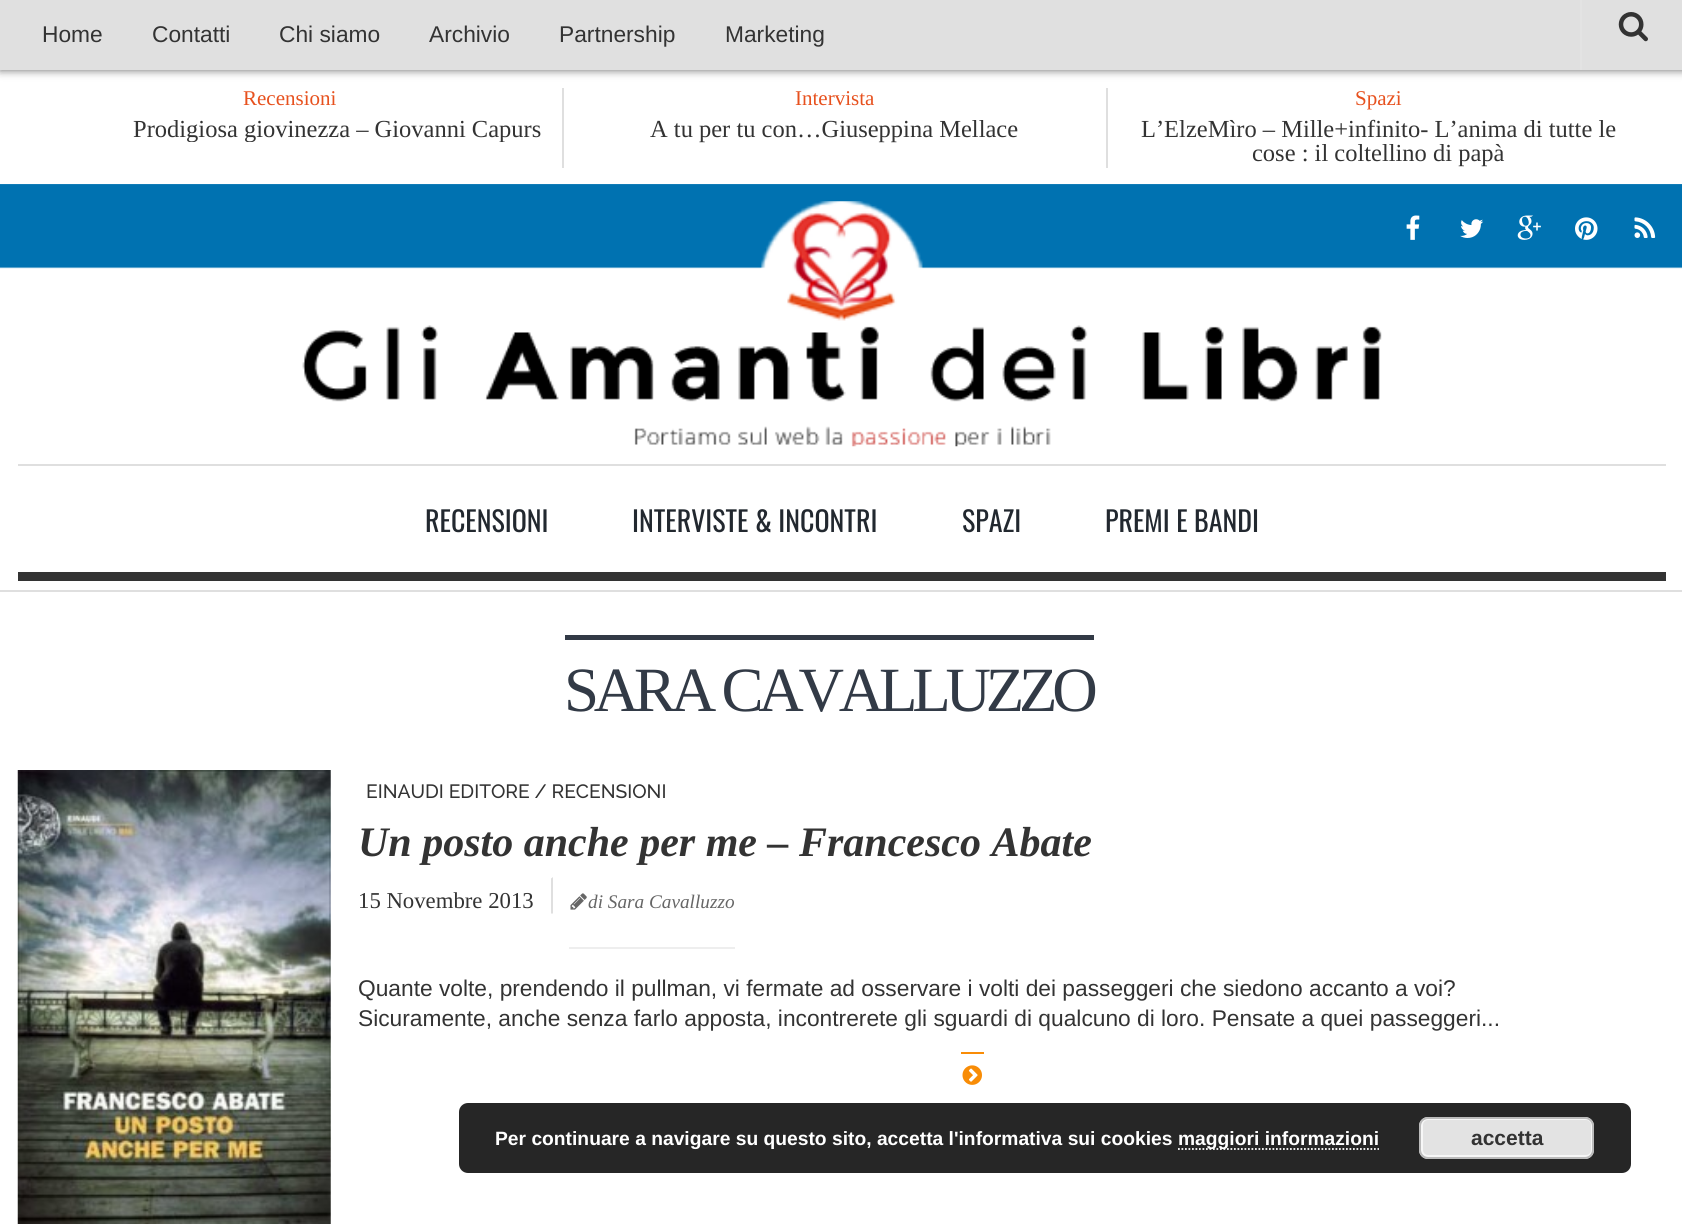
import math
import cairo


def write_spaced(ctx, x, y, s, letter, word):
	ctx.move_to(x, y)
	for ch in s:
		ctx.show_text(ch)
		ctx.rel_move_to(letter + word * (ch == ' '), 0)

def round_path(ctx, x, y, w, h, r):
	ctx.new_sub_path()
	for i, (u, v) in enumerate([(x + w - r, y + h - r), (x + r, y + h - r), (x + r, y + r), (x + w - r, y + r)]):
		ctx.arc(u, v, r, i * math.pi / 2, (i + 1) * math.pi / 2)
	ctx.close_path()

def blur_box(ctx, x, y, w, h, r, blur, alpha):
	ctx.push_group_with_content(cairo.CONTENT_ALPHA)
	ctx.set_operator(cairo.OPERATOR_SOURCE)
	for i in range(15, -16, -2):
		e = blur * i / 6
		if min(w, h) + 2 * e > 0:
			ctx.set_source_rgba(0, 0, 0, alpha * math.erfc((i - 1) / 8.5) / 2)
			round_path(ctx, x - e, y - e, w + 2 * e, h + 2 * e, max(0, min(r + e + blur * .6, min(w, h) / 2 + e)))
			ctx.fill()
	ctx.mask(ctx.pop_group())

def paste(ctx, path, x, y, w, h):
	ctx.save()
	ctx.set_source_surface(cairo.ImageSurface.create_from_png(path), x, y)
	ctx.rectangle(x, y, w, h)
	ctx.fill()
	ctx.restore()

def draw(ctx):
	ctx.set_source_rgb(1, 1, 1)
	ctx.paint()
	paste(ctx, 'media/1.png', 0, 184, 1682, 85)
	ctx.set_source_rgb(0.4, 0.4, 0.4)
	blur_box(ctx, 0, 0, 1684, 70, 0, 4.5, 1)
	ctx.set_source_rgb(0.878, 0.878, 0.878)
	ctx.rectangle(0, 0, 1682, 70)
	ctx.fill()
	ctx.select_font_face('Liberation Sans')
	ctx.set_font_size(22.75)
	ctx.set_source_rgb(0.2, 0.2, 0.2)
	for x, y, s in [
		(42, 42, 'Home'),
		(152, 42, 'Contatti'),
		(279, 42, 'Chi siamo'),
		(429, 42, 'Archivio'),
		(559, 42, 'Partnership'),
		(725, 42, 'Marketing'),
	]:
		ctx.move_to(x, y)
		ctx.show_text(s)
	ctx.set_source_rgb(0.89, 0.89, 0.89)
	ctx.rectangle(1580, 0, 2, 70)
	ctx.fill()
	paste(ctx, 'media/2.png', 1618, 12, 30, 30)
	ctx.select_font_face('Liberation Serif')
	ctx.set_font_size(21)
	ctx.set_source_rgb(0.906, 0.318, 0.118)
	ctx.move_to(243, 105)
	ctx.show_text('Recensioni')
	ctx.save()
	ctx.rectangle(35, 117, 509, 25)
	ctx.clip()
	ctx.set_font_size(24.5)
	ctx.set_source_rgb(0.2, 0.2, 0.2)
	ctx.move_to(133, 137)
	ctx.show_text('Prodigiosa giovinezza – Giovanni Capurs')
	ctx.restore()
	ctx.set_source_rgb(0.875, 0.875, 0.875)
	ctx.rectangle(562, 88, 2, 80)
	ctx.fill()
	ctx.set_source_rgb(0.906, 0.318, 0.118)
	ctx.move_to(795, 105)
	ctx.show_text('Intervista')
	ctx.set_font_size(24.5)
	ctx.set_source_rgb(0.2, 0.2, 0.2)
	ctx.move_to(650, 137)
	ctx.show_text('A tu per tu con…Giuseppina Mellace')
	ctx.set_source_rgb(0.875, 0.875, 0.875)
	ctx.rectangle(1106, 88, 2, 80)
	ctx.fill()
	ctx.set_font_size(21)
	ctx.set_source_rgb(0.906, 0.318, 0.118)
	ctx.move_to(1355, 105)
	ctx.show_text('Spazi')
	ctx.set_font_size(24.5)
	ctx.set_source_rgb(0.2, 0.2, 0.2)
	ctx.move_to(1141, 137)
	ctx.show_text('L’ElzeMìro – Mille+infinito- L’anima di tutte le')
	ctx.move_to(1252, 161)
	ctx.show_text('cose : il coltellino di papà')
	paste(ctx, 'media/3.png', 302, 201, 1080, 246)
	paste(ctx, 'media/4.png', 1406, 215, 14, 25)
	paste(ctx, 'media/5.png', 1460, 219, 24, 19)
	paste(ctx, 'media/6.png', 1517, 215, 24, 25)
	paste(ctx, 'media/7.png', 1575, 217, 23, 23)
	paste(ctx, 'media/8.png', 1634, 217, 22, 21)
	ctx.set_source_rgb(0.875, 0.875, 0.875)
	ctx.rectangle(18, 464, 1648, 2)
	ctx.fill()
	ctx.set_source_rgb(0.2, 0.2, 0.2)
	ctx.rectangle(18, 572, 1648, 9)
	ctx.fill()
	ctx.select_font_face('Oswald')
	ctx.set_font_size(28)
	ctx.set_source_rgb(0.133, 0.157, 0.184)
	for x, y, s in [
		(425, 532, 'RECENSIONI'),
		(632, 532, 'INTERVISTE & INCONTRI'),
		(962, 532, 'SPAZI'),
		(1105, 532, 'PREMI E BANDI'),
	]:
		ctx.move_to(x, y)
		ctx.show_text(s)
	ctx.set_source_rgb(0.875, 0.875, 0.875)
	ctx.rectangle(0, 590, 1682, 2)
	ctx.fill()
	ctx.set_source_rgb(0.196, 0.227, 0.275)
	ctx.rectangle(565, 635, 529, 5)
	ctx.fill()
	ctx.select_font_face('Liberation Serif')
	ctx.set_font_size(63)
	write_spaced(ctx, 564, 711, 'SARA CAVALLUZZO', -5.25, 0)
	paste(ctx, 'media/9.png', 17, 770, 314, 454)
	ctx.select_font_face('Raleway Medium')
	ctx.set_font_size(19.25)
	ctx.set_source_rgb(0.2, 0.2, 0.2)
	ctx.move_to(366, 798)
	ctx.show_text('EINAUDI EDITORE / RECENSIONI')
	ctx.select_font_face('Liberation Serif', cairo.FONT_SLANT_ITALIC, cairo.FONT_WEIGHT_BOLD)
	ctx.set_font_size(42)
	ctx.move_to(358, 856)
	ctx.show_text('Un posto anche per me – Francesco Abate')
	ctx.select_font_face('Liberation Serif')
	ctx.set_font_size(22.75)
	ctx.move_to(358, 908)
	ctx.show_text('15 Novembre 2013')
	ctx.set_source_rgb(0.875, 0.875, 0.875)
	ctx.new_path()
	ctx.move_to(553, 877)
	ctx.line_to(553, 913.5)
	ctx.line_to(551, 913.5)
	ctx.line_to(551, 878.5)
	ctx.close_path()
	ctx.fill()
	ctx.set_source_rgb(0.933, 0.933, 0.933)
	ctx.rectangle(569, 947, 166, 2)
	ctx.fill()
	paste(ctx, 'media/10.png', 570, 893, 17, 17)
	ctx.select_font_face('Liberation Serif', cairo.FONT_SLANT_ITALIC)
	ctx.set_font_size(19.25)
	ctx.set_source_rgb(0.4, 0.4, 0.4)
	ctx.move_to(588, 908)
	ctx.show_text('di Sara Cavalluzzo')
	ctx.select_font_face('Liberation Sans')
	ctx.set_font_size(22.75)
	ctx.set_source_rgb(0.2, 0.2, 0.2)
	ctx.move_to(358, 996)
	ctx.show_text('Quante volte, prendendo il pullman, vi fermate ad osservare i volti dei passeggeri che siedono accanto a voi?')
	ctx.move_to(358, 1026)
	ctx.show_text('Sicuramente, anche senza farlo apposta, incontrerete gli sguardi di qualcuno di loro. Pensate a quei passeggeri...')
	ctx.set_source_rgb(0.973, 0.549, 0.024)
	ctx.rectangle(961, 1052, 23, 2)
	ctx.fill()
	paste(ctx, 'media/11.png', 962, 1065, 20, 20)
	ctx.set_source_rgb(0.149, 0.149, 0.149)
	round_path(ctx, 459, 1103, 1172, 70, 9)
	ctx.fill()
	ctx.select_font_face('Liberation Sans', cairo.FONT_SLANT_NORMAL, cairo.FONT_WEIGHT_BOLD)
	ctx.set_font_size(19.25)
	ctx.set_source_rgb(1, 1, 1)
	ctx.move_to(495, 1145)
	ctx.show_text('Per continuare a navigare su questo sito, accetta l\'informativa sui cookies')
	ctx.new_path()
	ctx.move_to(1178, 1149)
	ctx.line_to(1379, 1149)
	ctx.set_line_width(1.8)
	ctx.set_dash([1.75, 1.75])
	ctx.stroke()
	ctx.move_to(1178, 1145)
	ctx.show_text('maggiori informazioni')
	ctx.set_source_rgb(0.89, 0.89, 0.89)
	round_path(ctx, 1419, 1117, 175, 42, 9)
	ctx.fill()
	round_path(ctx, 1422, 1119, 170, 37, 6)
	ctx.set_source_rgb(0.965, 0.965, 0.965)
	ctx.set_line_width(2)
	ctx.set_dash([])
	ctx.stroke()
	round_path(ctx, 1420, 1118, 173, 40, 8)
	ctx.set_source_rgb(0.733, 0.733, 0.733)
	ctx.stroke()
	ctx.set_font_size(21)
	ctx.set_source_rgb(0.2, 0.2, 0.2)
	ctx.move_to(1471, 1145)
	ctx.show_text('accetta')


surface = cairo.ImageSurface(cairo.FORMAT_RGB24, 1682, 1224)
ctx = cairo.Context(surface)
options = cairo.FontOptions()
options.set_hint_metrics(cairo.HINT_METRICS_OFF)
options.set_hint_style(cairo.HINT_STYLE_NONE)
ctx.set_font_options(options)
ctx.set_miter_limit(4)
draw(ctx)
surface.write_to_png('image.png')
